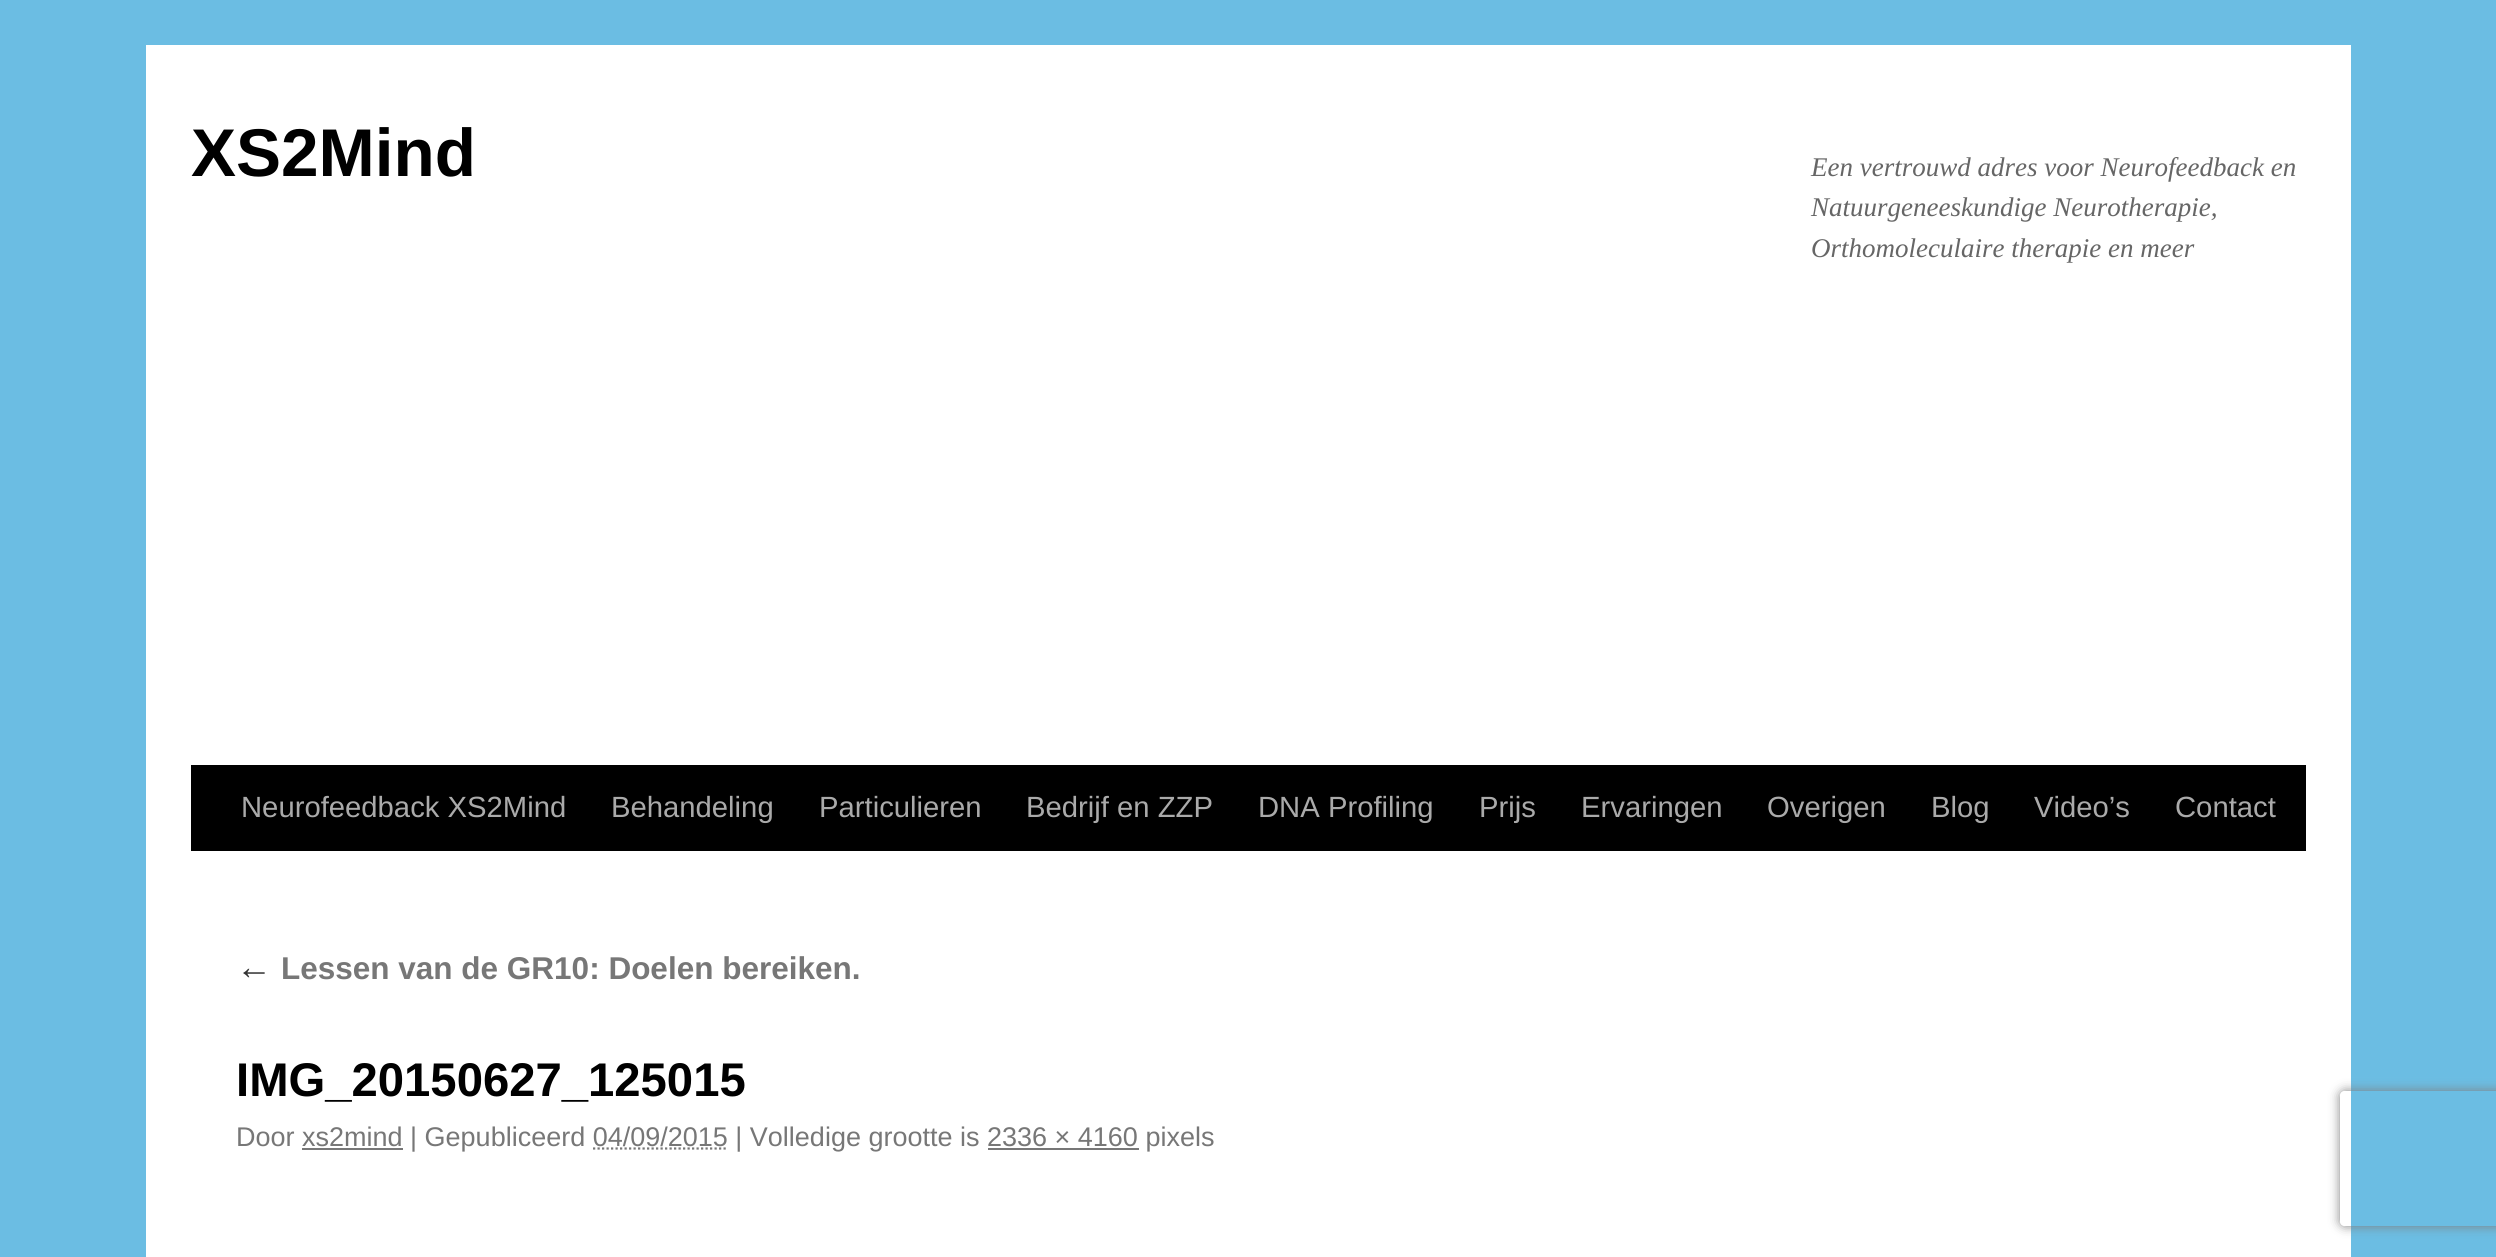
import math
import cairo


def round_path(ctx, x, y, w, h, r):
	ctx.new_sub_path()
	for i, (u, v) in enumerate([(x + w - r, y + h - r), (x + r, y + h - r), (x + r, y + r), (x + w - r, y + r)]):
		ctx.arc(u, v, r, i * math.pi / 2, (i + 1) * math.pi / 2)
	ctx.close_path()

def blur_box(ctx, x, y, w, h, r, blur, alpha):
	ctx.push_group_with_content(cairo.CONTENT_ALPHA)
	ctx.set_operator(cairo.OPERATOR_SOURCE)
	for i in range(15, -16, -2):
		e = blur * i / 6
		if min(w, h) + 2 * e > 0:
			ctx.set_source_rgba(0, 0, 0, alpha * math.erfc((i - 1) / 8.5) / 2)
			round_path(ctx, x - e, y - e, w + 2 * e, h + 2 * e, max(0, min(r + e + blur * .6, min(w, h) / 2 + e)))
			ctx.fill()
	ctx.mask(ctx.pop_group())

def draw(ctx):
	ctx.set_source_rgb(0.42, 0.741, 0.89)
	ctx.paint()
	ctx.set_source_rgb(1, 1, 1)
	ctx.rectangle(146, 45, 2205, 1212)
	ctx.fill()
	ctx.select_font_face('Liberation Sans', cairo.FONT_SLANT_NORMAL, cairo.FONT_WEIGHT_BOLD)
	ctx.set_font_size(67.5)
	ctx.set_source_rgb(0, 0, 0)
	ctx.move_to(191, 176)
	ctx.show_text('XS2Mind')
	ctx.select_font_face('Liberation Serif', cairo.FONT_SLANT_ITALIC)
	ctx.set_font_size(27)
	ctx.set_source_rgb(0.4, 0.4, 0.4)
	for x, y, s in [
		(1811, 176, 'Een vertrouwd adres voor Neurofeedback en'),
		(1811, 216, 'Natuurgeneeskundige Neurotherapie,'),
		(1811, 257, 'Orthomoleculaire therapie en meer'),
	]:
		ctx.move_to(x, y)
		ctx.show_text(s)
	ctx.set_source_rgb(0, 0, 0)
	ctx.rectangle(191, 765, 2115, 86)
	ctx.fill()
	ctx.select_font_face('Liberation Sans')
	ctx.set_font_size(29.25)
	ctx.set_source_rgb(0.667, 0.667, 0.667)
	for x, y, s in [
		(241, 817, 'Neurofeedback XS2Mind'),
		(611, 817, 'Behandeling'),
		(819, 817, 'Particulieren'),
		(1026, 817, 'Bedrijf en ZZP'),
		(1258, 817, 'DNA Profiling'),
		(1479, 817, 'Prijs'),
		(1581, 817, 'Ervaringen'),
		(1767, 817, 'Overigen'),
		(1931, 817, 'Blog'),
		(2034, 817, 'Video’s'),
		(2175, 817, 'Contact'),
	]:
		ctx.move_to(x, y)
		ctx.show_text(s)
	ctx.select_font_face('Liberation Serif', cairo.FONT_SLANT_ITALIC)
	ctx.set_font_size(36)
	ctx.set_source_rgb(0.2, 0.2, 0.2)
	ctx.move_to(236, 979)
	ctx.show_text('←')
	ctx.select_font_face('Liberation Sans', cairo.FONT_SLANT_NORMAL, cairo.FONT_WEIGHT_BOLD)
	ctx.set_font_size(31.5)
	ctx.set_source_rgb(0.467, 0.467, 0.467)
	ctx.move_to(281, 979)
	ctx.show_text('Lessen van de GR10: Doelen bereiken.')
	ctx.set_font_size(47.25)
	ctx.set_source_rgb(0, 0, 0)
	ctx.move_to(236, 1096)
	ctx.show_text('IMG_20150627_125015')
	ctx.select_font_face('Liberation Sans')
	ctx.set_font_size(27)
	ctx.set_source_rgb(0.467, 0.467, 0.467)
	ctx.move_to(236, 1146)
	ctx.show_text('Door xs2mind | Gepubliceerd 04/09/2015 | Volledige grootte is 2336 × 4160 pixels')
	ctx.rectangle(302, 1148, 101, 2)
	ctx.fill()
	ctx.new_path()
	ctx.move_to(593, 1148.5)
	ctx.line_to(728, 1148.5)
	ctx.set_line_width(2.2)
	ctx.set_dash([2.25, 2.25])
	ctx.stroke()
	ctx.rectangle(988, 1148, 151, 2)
	ctx.fill()
	ctx.save()
	ctx.set_fill_rule(cairo.FILL_RULE_EVEN_ODD)
	ctx.new_path()
	ctx.move_to(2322, 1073)
	ctx.line_to(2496, 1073)
	ctx.line_to(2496, 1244)
	ctx.line_to(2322, 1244)
	ctx.close_path()
	ctx.move_to(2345, 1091)
	ctx.line_to(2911, 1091)
	ctx.curve_to(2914, 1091, 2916, 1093, 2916, 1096)
	ctx.line_to(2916, 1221)
	ctx.curve_to(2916, 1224, 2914, 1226, 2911, 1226)
	ctx.line_to(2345, 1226)
	ctx.curve_to(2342, 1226, 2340, 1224, 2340, 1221)
	ctx.line_to(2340, 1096)
	ctx.curve_to(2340, 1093, 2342, 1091, 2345, 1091)
	ctx.close_path()
	ctx.clip()
	ctx.set_source_rgb(0.502, 0.502, 0.502)
	blur_box(ctx, 2340, 1091, 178, 135, 5, 5.5, 1)
	ctx.restore()


surface = cairo.ImageSurface(cairo.FORMAT_RGB24, 2496, 1257)
ctx = cairo.Context(surface)
options = cairo.FontOptions()
options.set_hint_metrics(cairo.HINT_METRICS_OFF)
options.set_hint_style(cairo.HINT_STYLE_NONE)
ctx.set_font_options(options)
ctx.set_miter_limit(4)
draw(ctx)
surface.write_to_png('image.png')
